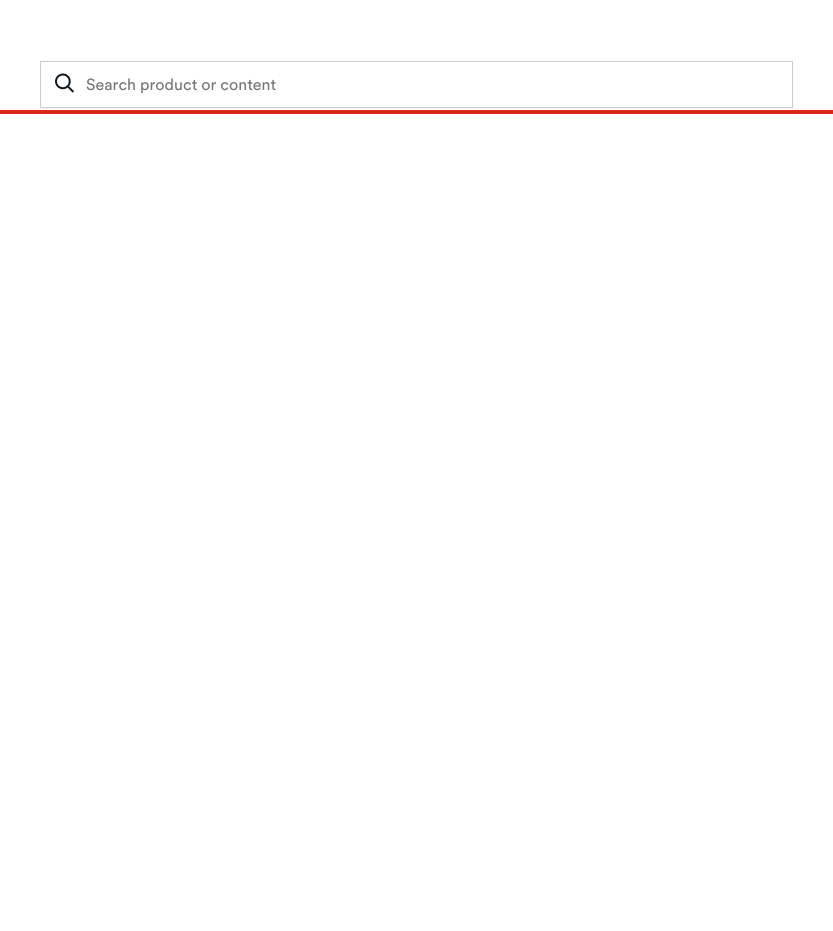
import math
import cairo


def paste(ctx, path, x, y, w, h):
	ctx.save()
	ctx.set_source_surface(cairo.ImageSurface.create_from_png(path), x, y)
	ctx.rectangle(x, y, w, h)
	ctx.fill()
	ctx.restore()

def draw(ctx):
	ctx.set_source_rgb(1, 1, 1)
	ctx.paint()
	ctx.rectangle(40.5, 61.5, 752, 46)
	ctx.set_source_rgb(0.8, 0.8, 0.8)
	ctx.set_line_width(1)
	ctx.stroke()
	paste(ctx, 'media/1.png', 55, 73, 19, 20)
	ctx.select_font_face('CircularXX')
	ctx.set_font_size(16)
	ctx.set_source_rgb(0.459, 0.459, 0.459)
	ctx.move_to(86, 90)
	ctx.show_text('Search product or content')
	ctx.set_source_rgb(0.969, 0.965, 0.965)
	ctx.rectangle(0, 108, 833, 1)
	ctx.fill()
	ctx.set_source_rgb(0.867, 0.149, 0.102)
	ctx.rectangle(0, 110, 833, 4)
	ctx.fill()


surface = cairo.ImageSurface(cairo.FORMAT_RGB24, 833, 931)
ctx = cairo.Context(surface)
options = cairo.FontOptions()
options.set_hint_metrics(cairo.HINT_METRICS_OFF)
options.set_hint_style(cairo.HINT_STYLE_NONE)
ctx.set_font_options(options)
ctx.set_miter_limit(4)
draw(ctx)
surface.write_to_png('image.png')
